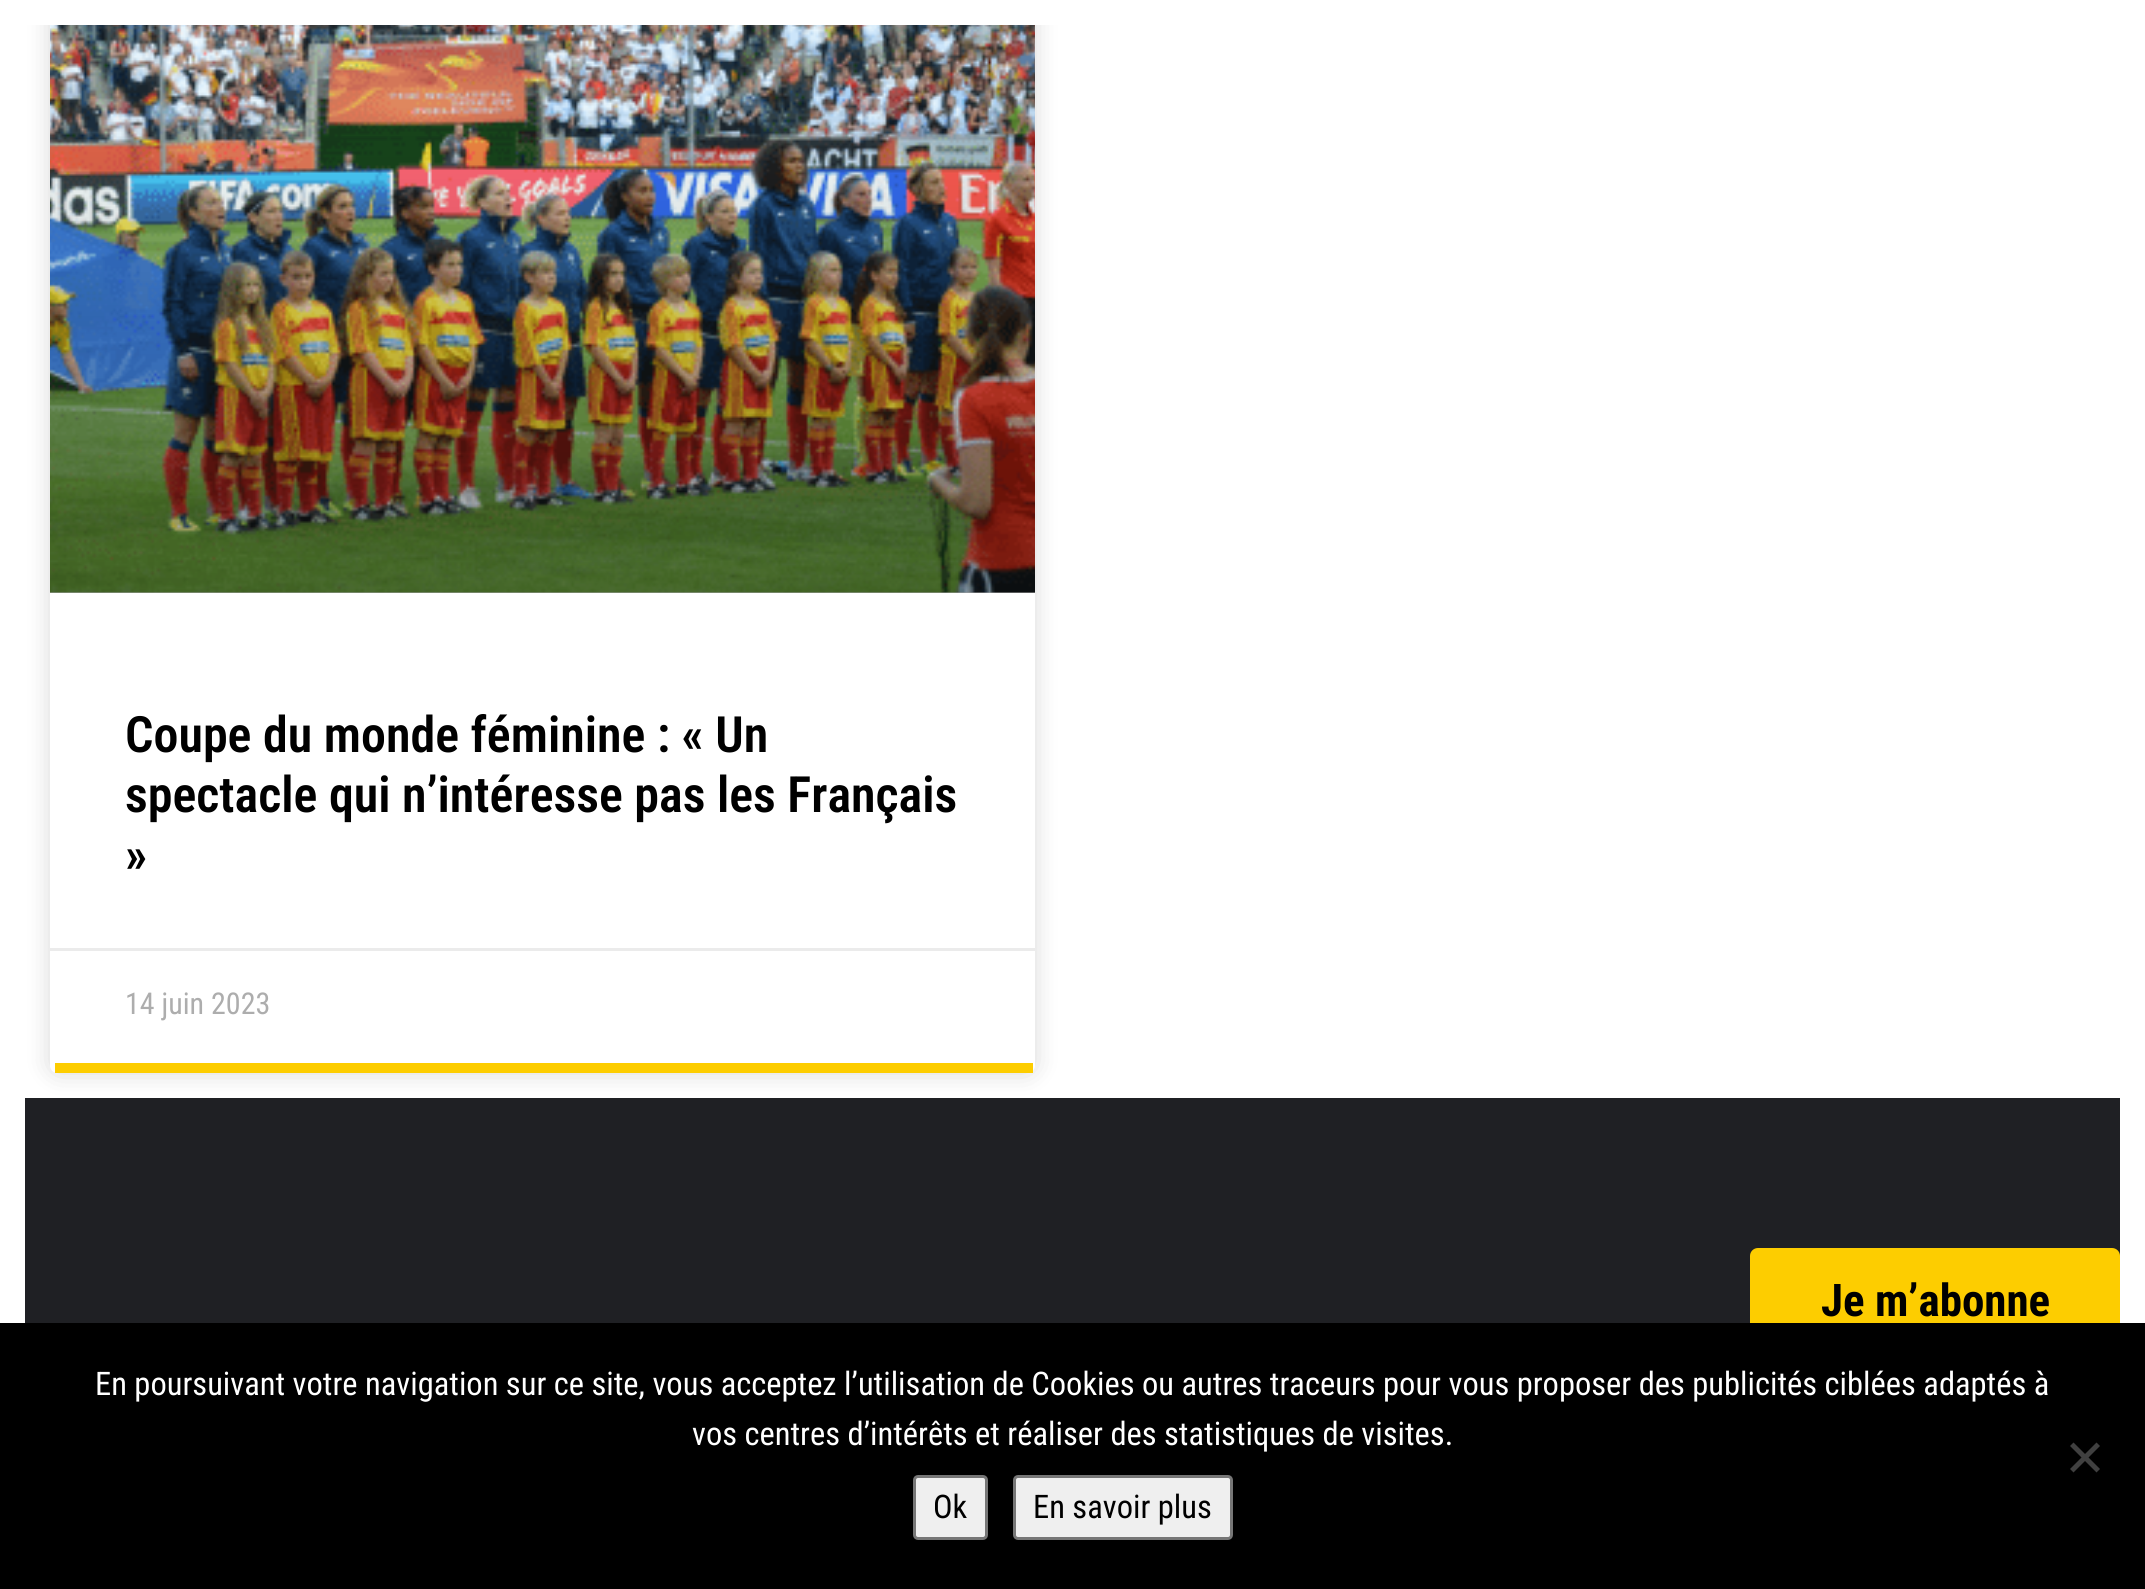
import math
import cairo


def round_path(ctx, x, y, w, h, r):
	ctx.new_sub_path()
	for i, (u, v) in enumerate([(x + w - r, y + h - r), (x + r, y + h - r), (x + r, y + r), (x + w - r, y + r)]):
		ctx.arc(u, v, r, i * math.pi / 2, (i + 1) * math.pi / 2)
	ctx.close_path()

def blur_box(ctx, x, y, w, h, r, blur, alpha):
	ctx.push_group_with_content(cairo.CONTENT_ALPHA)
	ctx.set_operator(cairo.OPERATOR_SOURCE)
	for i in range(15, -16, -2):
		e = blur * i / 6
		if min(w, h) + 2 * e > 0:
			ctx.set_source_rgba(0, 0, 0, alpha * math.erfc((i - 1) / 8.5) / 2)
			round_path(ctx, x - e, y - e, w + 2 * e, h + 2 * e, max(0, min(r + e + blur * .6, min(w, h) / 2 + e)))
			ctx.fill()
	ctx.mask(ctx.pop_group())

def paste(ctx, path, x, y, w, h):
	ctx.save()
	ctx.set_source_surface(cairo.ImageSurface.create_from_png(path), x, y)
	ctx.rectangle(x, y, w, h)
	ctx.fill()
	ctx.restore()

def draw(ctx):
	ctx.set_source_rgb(1, 1, 1)
	ctx.paint()
	ctx.set_source_rgb(0.122, 0.125, 0.141)
	ctx.rectangle(25, 1098, 2095, 225)
	ctx.fill()
	ctx.save()
	ctx.set_fill_rule(cairo.FILL_RULE_EVEN_ODD)
	ctx.new_path()
	ctx.move_to(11, 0)
	ctx.line_to(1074, 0)
	ctx.line_to(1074, 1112)
	ctx.line_to(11, 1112)
	ctx.close_path()
	ctx.move_to(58, -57)
	ctx.line_to(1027, -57)
	ctx.curve_to(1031.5, -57, 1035, -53.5, 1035, -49)
	ctx.line_to(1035, 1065)
	ctx.curve_to(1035, 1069.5, 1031.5, 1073, 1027, 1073)
	ctx.line_to(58, 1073)
	ctx.curve_to(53.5, 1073, 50, 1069.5, 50, 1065)
	ctx.line_to(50, -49)
	ctx.curve_to(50, -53.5, 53.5, -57, 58, -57)
	ctx.close_path()
	ctx.clip()
	ctx.set_source_rgb(0, 0, 0)
	blur_box(ctx, 50, -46, 985, 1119, 8, 12.5, 0.15)
	ctx.restore()
	ctx.set_source_rgb(0.992, 0.804, 0)
	ctx.rectangle(55, 1063, 978, 10)
	ctx.fill()
	paste(ctx, 'media/1.png', 50, 25, 985, 568)
	gradient = cairo.LinearGradient(543, 593, 543, -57)
	gradient.add_color_stop_rgba(0, 0, 0, 0, 0.35)
	gradient.add_color_stop_rgba(0.75, 0, 0, 0, 0)
	ctx.set_source(gradient)
	ctx.new_path()
	ctx.move_to(50, -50)
	ctx.line_to(50, 593)
	ctx.line_to(1035, 593)
	ctx.line_to(1035, -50)
	ctx.curve_to(1035, -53, 1033, -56, 1030, -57)
	ctx.line_to(55, -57)
	ctx.curve_to(52, -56, 50, -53, 50, -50)
	ctx.close_path()
	ctx.fill()
	ctx.set_source_rgb(0.918, 0.918, 0.918)
	ctx.rectangle(50, 948, 985, 3)
	ctx.fill()
	ctx.set_source_rgb(0.992, 0.804, 0)
	round_path(ctx, 1750, 1248, 370, 105, 8)
	ctx.fill()
	ctx.rectangle(12.5, 12.5, 2120, 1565)
	ctx.set_source_rgb(1, 1, 1)
	ctx.set_line_width(25)
	ctx.stroke()
	ctx.select_font_face('Roboto Condensed SemiBold')
	ctx.set_font_size(50)
	ctx.set_source_rgb(0, 0, 0)
	for x, y, s in [
		(125, 752, 'Coupe du monde féminine : « Un'),
		(125, 812, 'spectacle qui n’intéresse pas les Français'),
		(125, 872, '»'),
	]:
		ctx.move_to(x, y)
		ctx.show_text(s)
	ctx.select_font_face('Roboto Condensed')
	ctx.set_font_size(30)
	ctx.set_source_rgb(0.678, 0.678, 0.678)
	ctx.move_to(125, 1014)
	ctx.show_text('14 juin 2023')
	ctx.select_font_face('Roboto Condensed', cairo.FONT_SLANT_NORMAL, cairo.FONT_WEIGHT_BOLD)
	ctx.set_font_size(45)
	ctx.set_source_rgb(0, 0, 0)
	ctx.move_to(1821, 1316)
	ctx.show_text('Je m’abonne')
	ctx.rectangle(0, 1323, 2145, 266)
	ctx.fill()
	ctx.select_font_face('Roboto Condensed')
	ctx.set_font_size(32.5)
	ctx.set_source_rgb(1, 1, 1)
	ctx.move_to(95, 1395)
	ctx.show_text('En poursuivant votre navigation sur ce site, vous acceptez l’utilisation de Cookies ou autres traceurs pour vous proposer des publicités ciblées adaptés à')
	ctx.move_to(692, 1445)
	ctx.show_text('vos centres d’intérêts et réaliser des statistiques de visites.')
	ctx.set_source_rgb(0.251, 0.251, 0.251)
	ctx.new_path()
	ctx.move_to(2096.5, 1442.5)
	ctx.line_to(2100, 1446)
	ctx.line_to(2073.5, 1472.5)
	ctx.line_to(2070, 1469)
	ctx.close_path()
	ctx.fill()
	ctx.new_path()
	ctx.move_to(2070, 1446)
	ctx.line_to(2073.5, 1442.5)
	ctx.line_to(2100, 1469)
	ctx.line_to(2096.5, 1472.5)
	ctx.close_path()
	ctx.fill()
	ctx.set_source_rgb(0.937, 0.937, 0.937)
	round_path(ctx, 914.5, 1476.5, 72, 62, 3.5)
	ctx.fill_preserve()
	ctx.set_source_rgb(0.463, 0.463, 0.463)
	ctx.set_line_width(3)
	ctx.stroke()
	ctx.set_source_rgb(0, 0, 0)
	ctx.move_to(933, 1518)
	ctx.show_text('Ok')
	ctx.set_source_rgb(0.937, 0.937, 0.937)
	round_path(ctx, 1014.5, 1476.5, 217, 62, 3.5)
	ctx.fill_preserve()
	ctx.set_source_rgb(0.463, 0.463, 0.463)
	ctx.stroke()
	ctx.set_source_rgb(0, 0, 0)
	ctx.move_to(1033, 1518)
	ctx.show_text('En savoir plus')


surface = cairo.ImageSurface(cairo.FORMAT_RGB24, 2145, 1589)
ctx = cairo.Context(surface)
options = cairo.FontOptions()
options.set_hint_metrics(cairo.HINT_METRICS_OFF)
options.set_hint_style(cairo.HINT_STYLE_NONE)
ctx.set_font_options(options)
ctx.set_miter_limit(4)
draw(ctx)
surface.write_to_png('image.png')
